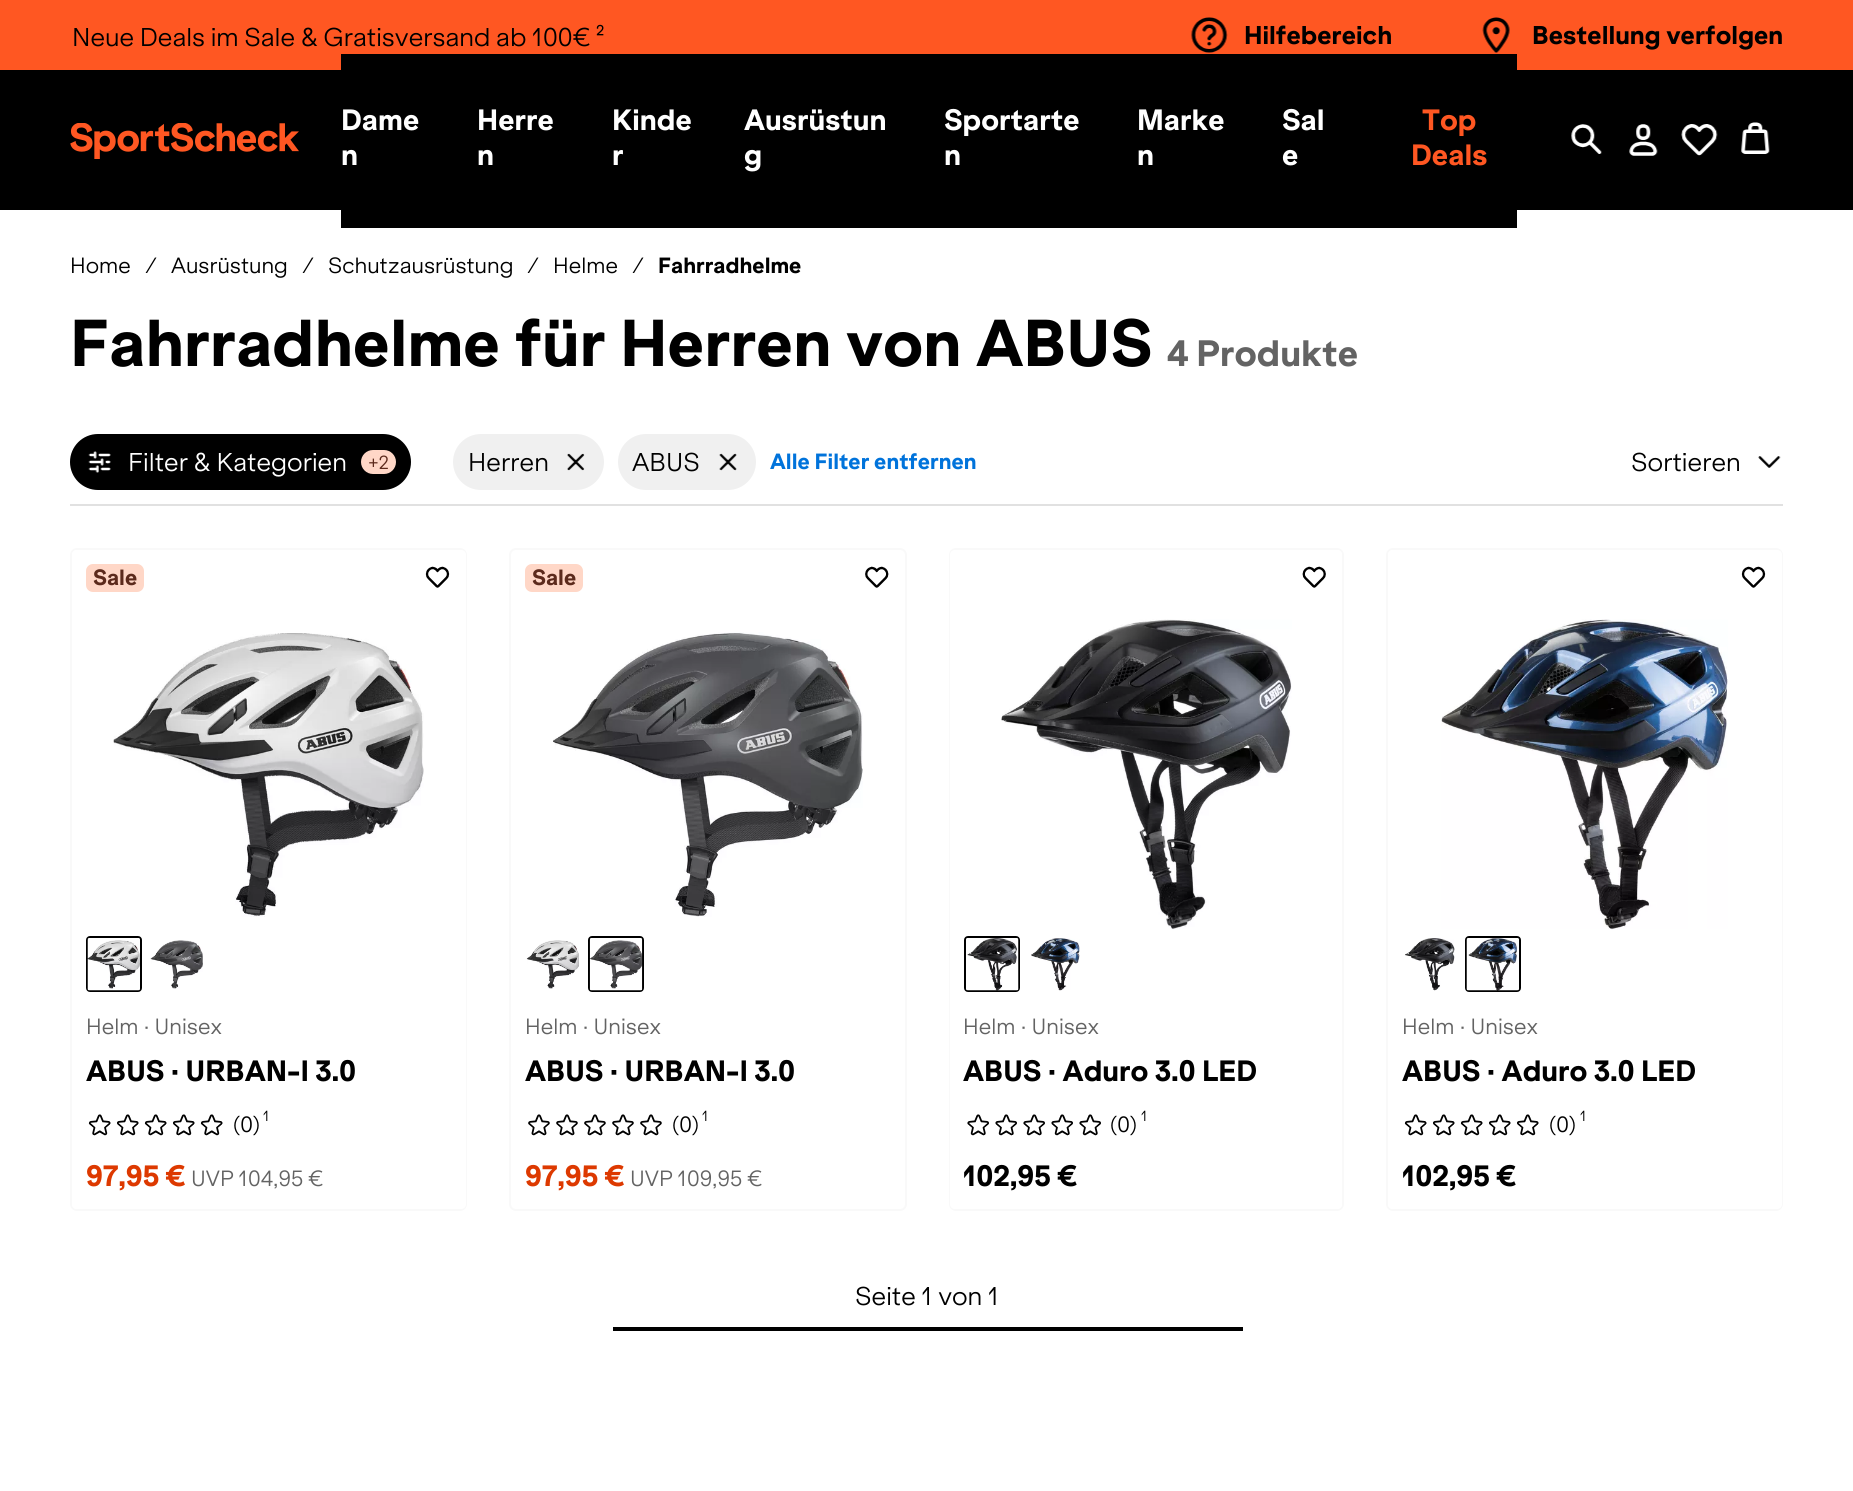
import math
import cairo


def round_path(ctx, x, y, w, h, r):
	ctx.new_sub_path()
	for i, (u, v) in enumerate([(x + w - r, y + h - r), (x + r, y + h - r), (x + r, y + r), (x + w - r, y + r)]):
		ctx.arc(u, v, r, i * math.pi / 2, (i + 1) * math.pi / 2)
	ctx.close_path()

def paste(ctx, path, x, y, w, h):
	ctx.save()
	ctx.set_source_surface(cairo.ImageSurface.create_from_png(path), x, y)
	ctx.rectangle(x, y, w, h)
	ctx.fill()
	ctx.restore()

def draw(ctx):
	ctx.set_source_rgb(1, 1, 1)
	ctx.paint()
	ctx.set_source_rgb(1, 0.341, 0.133)
	ctx.rectangle(0, 0, 1853, 70)
	ctx.fill()
	ctx.select_font_face('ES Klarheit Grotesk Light')
	ctx.set_font_size(24.5)
	ctx.set_source_rgb(0, 0, 0)
	ctx.move_to(72, 46)
	ctx.show_text('Neue Deals im Sale & Gratisversand ab 100€ ²')
	paste(ctx, 'media/1.png', 1191, 17, 37, 36)
	ctx.select_font_face('ES Klarheit Grotesk ExtraBold')
	ctx.move_to(1244, 44)
	ctx.show_text('Hilfebereich')
	paste(ctx, 'media/2.png', 1482, 17, 28, 36)
	ctx.move_to(1532, 44)
	ctx.show_text('Bestellung verfolgen')
	ctx.rectangle(0, 70, 1853, 140)
	ctx.fill()
	paste(ctx, 'media/3.png', 70, 123, 229, 36)
	ctx.rectangle(341, 54, 1176, 174)
	ctx.fill()
	ctx.set_font_size(28)
	ctx.set_source_rgb(1, 1, 1)
	for x, y, s in [
		(341, 130, 'Dame'),
		(341, 165, 'n'),
		(477, 130, 'Herre'),
		(477, 165, 'n'),
		(612, 130, 'Kinde'),
		(612, 165, 'r'),
		(744, 130, 'Ausrüstun'),
		(744, 165, 'g'),
		(944, 130, 'Sportarte'),
		(944, 165, 'n'),
		(1137, 130, 'Marke'),
		(1137, 165, 'n'),
		(1282, 130, 'Sal'),
		(1282, 165, 'e'),
	]:
		ctx.move_to(x, y)
		ctx.show_text(s)
	ctx.set_source_rgb(1, 0.341, 0.133)
	ctx.move_to(1422, 130)
	ctx.show_text('Top')
	ctx.move_to(1411, 165)
	ctx.show_text('Deals')
	paste(ctx, 'media/4.png', 1571, 124, 31, 30)
	paste(ctx, 'media/5.png', 1629, 124, 29, 32)
	paste(ctx, 'media/6.png', 1681, 124, 37, 32)
	paste(ctx, 'media/7.png', 1741, 122, 29, 32)
	ctx.select_font_face('ES Klarheit Grotesk Light')
	ctx.set_font_size(21)
	ctx.set_source_rgb(0, 0, 0)
	for x, y, s in [
		(70, 273, 'Home'),
		(145, 273, '/'),
		(171, 273, 'Ausrüstung'),
		(302, 273, '/'),
		(328, 273, 'Schutzausrüstung'),
		(527, 273, '/'),
		(553, 273, 'Helme'),
		(632, 273, '/'),
	]:
		ctx.move_to(x, y)
		ctx.show_text(s)
	ctx.select_font_face('ES Klarheit Grotesk ExtraBold')
	ctx.move_to(658, 273)
	ctx.show_text('Fahrradhelme')
	ctx.set_font_size(63)
	ctx.move_to(70, 366)
	ctx.show_text('Fahrradhelme für Herren von ABUS')
	ctx.set_font_size(35)
	ctx.set_source_rgb(0.388, 0.388, 0.388)
	ctx.move_to(1167, 366)
	ctx.show_text('4 Produkte')
	ctx.set_source_rgb(0.882, 0.882, 0.882)
	ctx.rectangle(70, 504, 1713, 2)
	ctx.fill()
	ctx.set_source_rgb(0, 0, 0)
	round_path(ctx, 71, 435, 339, 54, 27)
	ctx.fill_preserve()
	ctx.stroke()
	paste(ctx, 'media/8.png', 88, 451, 23, 22)
	ctx.select_font_face('ES Klarheit Grotesk Light')
	ctx.set_font_size(24.5)
	ctx.set_source_rgb(1, 1, 1)
	ctx.move_to(128, 471)
	ctx.show_text('Filter & Kategorien')
	ctx.set_source_rgb(1, 0.843, 0.78)
	round_path(ctx, 361, 450, 35, 24, 12)
	ctx.fill()
	ctx.set_font_size(18)
	ctx.set_source_rgb(0.361, 0.165, 0.11)
	ctx.move_to(368, 469)
	ctx.show_text('+2')
	ctx.set_source_rgb(0.941, 0.941, 0.941)
	round_path(ctx, 453, 434, 151, 56, 28)
	ctx.fill()
	ctx.set_font_size(24.5)
	ctx.set_source_rgb(0, 0, 0)
	ctx.move_to(468, 471)
	ctx.show_text('Herren')
	paste(ctx, 'media/9.png', 567, 453, 18, 18)
	ctx.set_source_rgb(0.941, 0.941, 0.941)
	round_path(ctx, 618, 434, 138, 56, 28)
	ctx.fill()
	ctx.set_source_rgb(0, 0, 0)
	ctx.move_to(632, 471)
	ctx.show_text('ABUS')
	paste(ctx, 'media/10.png', 719, 453, 18, 18)
	ctx.select_font_face('ES Klarheit Grotesk ExtraBold')
	ctx.set_font_size(21)
	ctx.set_source_rgb(0, 0.451, 0.859)
	ctx.move_to(770, 469)
	ctx.show_text('Alle Filter entfernen')
	ctx.select_font_face('ES Klarheit Grotesk Light')
	ctx.set_font_size(24.5)
	ctx.set_source_rgb(0, 0, 0)
	ctx.move_to(1631, 471)
	ctx.show_text('Sortieren')
	paste(ctx, 'media/11.png', 1758, 456, 23, 12)
	round_path(ctx, 71, 549, 395, 661, 6)
	ctx.set_source_rgb(0.973, 0.973, 0.973)
	ctx.stroke()
	ctx.set_source_rgb(1, 1, 1)
	ctx.new_path()
	ctx.move_to(77, 550)
	ctx.line_to(461, 550)
	ctx.curve_to(464, 550, 466, 552, 466, 555)
	ctx.line_to(466, 999)
	ctx.line_to(72, 999)
	ctx.line_to(72, 555)
	ctx.curve_to(72, 552, 74, 550, 77, 550)
	ctx.close_path()
	ctx.fill()
	paste(ctx, 'media/12.png', 113, 633, 311, 284)
	round_path(ctx, 87, 937, 54, 54, 3)
	ctx.set_source_rgb(0, 0, 0)
	ctx.stroke()
	paste(ctx, 'media/13.png', 87, 938, 53, 53)
	paste(ctx, 'media/14.png', 150, 940, 53, 49)
	ctx.set_source_rgb(1, 0.843, 0.78)
	round_path(ctx, 86, 564, 58, 28, 7)
	ctx.fill()
	ctx.select_font_face('ES Klarheit Grotesk ExtraBold')
	ctx.set_font_size(21)
	ctx.set_source_rgb(0.361, 0.165, 0.11)
	ctx.move_to(93, 585)
	ctx.show_text('Sale')
	paste(ctx, 'media/15.png', 425, 566, 25, 22)
	ctx.set_source_rgb(1, 1, 1)
	ctx.new_path()
	ctx.move_to(72, 999)
	ctx.line_to(466, 999)
	ctx.line_to(466, 1204)
	ctx.curve_to(466, 1207, 464, 1209, 461, 1209)
	ctx.line_to(77, 1209)
	ctx.curve_to(74, 1209, 72, 1207, 72, 1204)
	ctx.close_path()
	ctx.fill()
	ctx.select_font_face('ES Klarheit Grotesk Light')
	ctx.set_source_rgb(0.388, 0.388, 0.388)
	ctx.move_to(86, 1034)
	ctx.show_text('Helm · Unisex')
	ctx.select_font_face('ES Klarheit Grotesk ExtraBold')
	ctx.set_font_size(28)
	ctx.set_source_rgb(0, 0, 0)
	ctx.move_to(86, 1081)
	ctx.show_text('ABUS · URBAN-I 3.0')
	paste(ctx, 'media/16.png', 88, 1114, 23, 22)
	paste(ctx, 'media/17.png', 117, 1114, 22, 22)
	paste(ctx, 'media/16.png', 144, 1114, 23, 22)
	paste(ctx, 'media/17.png', 173, 1114, 22, 22)
	paste(ctx, 'media/16.png', 200, 1114, 23, 22)
	ctx.select_font_face('ES Klarheit Grotesk Light')
	ctx.set_font_size(21)
	ctx.move_to(233, 1132)
	ctx.show_text('(0)')
	ctx.set_font_size(14)
	ctx.move_to(263, 1121)
	ctx.show_text('1')
	ctx.select_font_face('ES Klarheit Grotesk ExtraBold')
	ctx.set_font_size(28)
	ctx.set_source_rgb(0.867, 0.224, 0)
	ctx.move_to(86, 1186)
	ctx.show_text('97,95 €')
	ctx.select_font_face('ES Klarheit Grotesk Light')
	ctx.set_font_size(21)
	ctx.set_source_rgb(0.388, 0.388, 0.388)
	ctx.move_to(191, 1186)
	ctx.show_text('UVP 104,95 €')
	round_path(ctx, 510, 549, 396, 661, 6)
	ctx.set_source_rgb(0.973, 0.973, 0.973)
	ctx.stroke()
	ctx.set_source_rgb(1, 0.843, 0.78)
	round_path(ctx, 525, 564, 58, 28, 7)
	ctx.fill()
	ctx.select_font_face('ES Klarheit Grotesk ExtraBold')
	ctx.set_source_rgb(0.361, 0.165, 0.11)
	ctx.move_to(532, 585)
	ctx.show_text('Sale')
	paste(ctx, 'media/18.png', 865, 566, 24, 22)
	paste(ctx, 'media/19.png', 553, 632, 310, 285)
	paste(ctx, 'media/20.png', 526, 940, 54, 49)
	round_path(ctx, 589, 937, 54, 54, 3)
	ctx.set_source_rgb(0, 0, 0)
	ctx.stroke()
	paste(ctx, 'media/21.png', 589, 938, 54, 53)
	ctx.select_font_face('ES Klarheit Grotesk Light')
	ctx.set_source_rgb(0.388, 0.388, 0.388)
	ctx.move_to(525, 1034)
	ctx.show_text('Helm · Unisex')
	ctx.select_font_face('ES Klarheit Grotesk ExtraBold')
	ctx.set_font_size(28)
	ctx.set_source_rgb(0, 0, 0)
	ctx.move_to(525, 1081)
	ctx.show_text('ABUS · URBAN-I 3.0')
	paste(ctx, 'media/22.png', 528, 1114, 22, 22)
	paste(ctx, 'media/23.png', 556, 1114, 22, 22)
	paste(ctx, 'media/22.png', 584, 1114, 22, 22)
	paste(ctx, 'media/23.png', 612, 1114, 22, 22)
	paste(ctx, 'media/22.png', 640, 1114, 22, 22)
	ctx.select_font_face('ES Klarheit Grotesk Light')
	ctx.set_font_size(21)
	ctx.move_to(672, 1132)
	ctx.show_text('(0)')
	ctx.set_font_size(14)
	ctx.move_to(702, 1121)
	ctx.show_text('1')
	ctx.select_font_face('ES Klarheit Grotesk ExtraBold')
	ctx.set_font_size(28)
	ctx.set_source_rgb(0.867, 0.224, 0)
	ctx.move_to(525, 1186)
	ctx.show_text('97,95 €')
	ctx.select_font_face('ES Klarheit Grotesk Light')
	ctx.set_font_size(21)
	ctx.set_source_rgb(0.388, 0.388, 0.388)
	ctx.move_to(630, 1186)
	ctx.show_text('UVP 109,95 €')
	round_path(ctx, 950, 549, 393, 661, 6)
	ctx.set_source_rgb(0.973, 0.973, 0.973)
	ctx.stroke()
	ctx.set_source_rgb(1, 1, 1)
	ctx.new_path()
	ctx.move_to(955, 550)
	ctx.line_to(1337, 550)
	ctx.curve_to(1340, 550, 1342, 552, 1342, 555)
	ctx.line_to(1342, 999)
	ctx.line_to(950, 999)
	ctx.line_to(950, 555)
	ctx.curve_to(950, 552, 952, 550, 955, 550)
	ctx.close_path()
	ctx.fill()
	paste(ctx, 'media/24.png', 1001, 619, 291, 311)
	round_path(ctx, 965, 937, 54, 54, 3)
	ctx.set_source_rgb(0, 0, 0)
	ctx.stroke()
	paste(ctx, 'media/25.png', 966, 938, 53, 53)
	paste(ctx, 'media/26.png', 1031, 938, 49, 53)
	paste(ctx, 'media/27.png', 1302, 566, 24, 22)
	ctx.set_source_rgb(1, 1, 1)
	ctx.new_path()
	ctx.move_to(950, 999)
	ctx.line_to(1342, 999)
	ctx.line_to(1342, 1204)
	ctx.curve_to(1342, 1207, 1340, 1209, 1337, 1209)
	ctx.line_to(955, 1209)
	ctx.curve_to(952, 1209, 950, 1207, 950, 1204)
	ctx.close_path()
	ctx.fill()
	ctx.set_source_rgb(0.388, 0.388, 0.388)
	ctx.move_to(963, 1034)
	ctx.show_text('Helm · Unisex')
	ctx.select_font_face('ES Klarheit Grotesk ExtraBold')
	ctx.set_font_size(28)
	ctx.set_source_rgb(0, 0, 0)
	ctx.move_to(963, 1081)
	ctx.show_text('ABUS · Aduro 3.0 LED')
	paste(ctx, 'media/28.png', 967, 1114, 22, 22)
	paste(ctx, 'media/29.png', 995, 1114, 22, 22)
	paste(ctx, 'media/28.png', 1023, 1114, 22, 22)
	paste(ctx, 'media/29.png', 1051, 1114, 22, 22)
	paste(ctx, 'media/28.png', 1079, 1114, 22, 22)
	ctx.select_font_face('ES Klarheit Grotesk Light')
	ctx.set_font_size(21)
	ctx.move_to(1110, 1132)
	ctx.show_text('(0)')
	ctx.set_font_size(14)
	ctx.move_to(1141, 1121)
	ctx.show_text('1')
	ctx.select_font_face('ES Klarheit Grotesk ExtraBold')
	ctx.set_font_size(28)
	ctx.move_to(963, 1186)
	ctx.show_text('102,95 €')
	round_path(ctx, 1387, 549, 395, 661, 6)
	ctx.set_source_rgb(0.973, 0.973, 0.973)
	ctx.stroke()
	ctx.set_source_rgb(1, 1, 1)
	ctx.new_path()
	ctx.move_to(1393, 550)
	ctx.line_to(1777, 550)
	ctx.curve_to(1780, 550, 1782, 552, 1782, 555)
	ctx.line_to(1782, 999)
	ctx.line_to(1388, 999)
	ctx.line_to(1388, 555)
	ctx.curve_to(1388, 552, 1390, 550, 1393, 550)
	ctx.close_path()
	ctx.fill()
	paste(ctx, 'media/30.png', 1441, 619, 287, 311)
	paste(ctx, 'media/31.png', 1405, 938, 50, 53)
	round_path(ctx, 1466, 937, 54, 54, 3)
	ctx.set_source_rgb(0, 0, 0)
	ctx.stroke()
	paste(ctx, 'media/32.png', 1466, 938, 53, 53)
	paste(ctx, 'media/15.png', 1741, 566, 25, 22)
	ctx.set_source_rgb(1, 1, 1)
	ctx.new_path()
	ctx.move_to(1388, 999)
	ctx.line_to(1782, 999)
	ctx.line_to(1782, 1204)
	ctx.curve_to(1782, 1207, 1780, 1209, 1777, 1209)
	ctx.line_to(1393, 1209)
	ctx.curve_to(1390, 1209, 1388, 1207, 1388, 1204)
	ctx.close_path()
	ctx.fill()
	ctx.select_font_face('ES Klarheit Grotesk Light')
	ctx.set_font_size(21)
	ctx.set_source_rgb(0.388, 0.388, 0.388)
	ctx.move_to(1402, 1034)
	ctx.show_text('Helm · Unisex')
	ctx.select_font_face('ES Klarheit Grotesk ExtraBold')
	ctx.set_font_size(28)
	ctx.set_source_rgb(0, 0, 0)
	ctx.move_to(1402, 1081)
	ctx.show_text('ABUS · Aduro 3.0 LED')
	paste(ctx, 'media/16.png', 1404, 1114, 23, 22)
	paste(ctx, 'media/17.png', 1433, 1114, 22, 22)
	paste(ctx, 'media/16.png', 1460, 1114, 23, 22)
	paste(ctx, 'media/17.png', 1489, 1114, 22, 22)
	paste(ctx, 'media/33.png', 1517, 1114, 22, 22)
	ctx.select_font_face('ES Klarheit Grotesk Light')
	ctx.set_font_size(21)
	ctx.move_to(1549, 1132)
	ctx.show_text('(0)')
	ctx.set_font_size(14)
	ctx.move_to(1580, 1121)
	ctx.show_text('1')
	ctx.select_font_face('ES Klarheit Grotesk ExtraBold')
	ctx.set_font_size(28)
	ctx.move_to(1402, 1186)
	ctx.show_text('102,95 €')
	ctx.select_font_face('ES Klarheit Grotesk Light')
	ctx.set_font_size(24.5)
	ctx.move_to(855, 1305)
	ctx.show_text('Seite 1 von 1')
	ctx.rectangle(613, 1327, 630, 4)
	ctx.fill()


surface = cairo.ImageSurface(cairo.FORMAT_RGB24, 1853, 1491)
ctx = cairo.Context(surface)
options = cairo.FontOptions()
options.set_hint_metrics(cairo.HINT_METRICS_OFF)
options.set_hint_style(cairo.HINT_STYLE_NONE)
ctx.set_font_options(options)
ctx.set_miter_limit(4)
draw(ctx)
surface.write_to_png('image.png')
